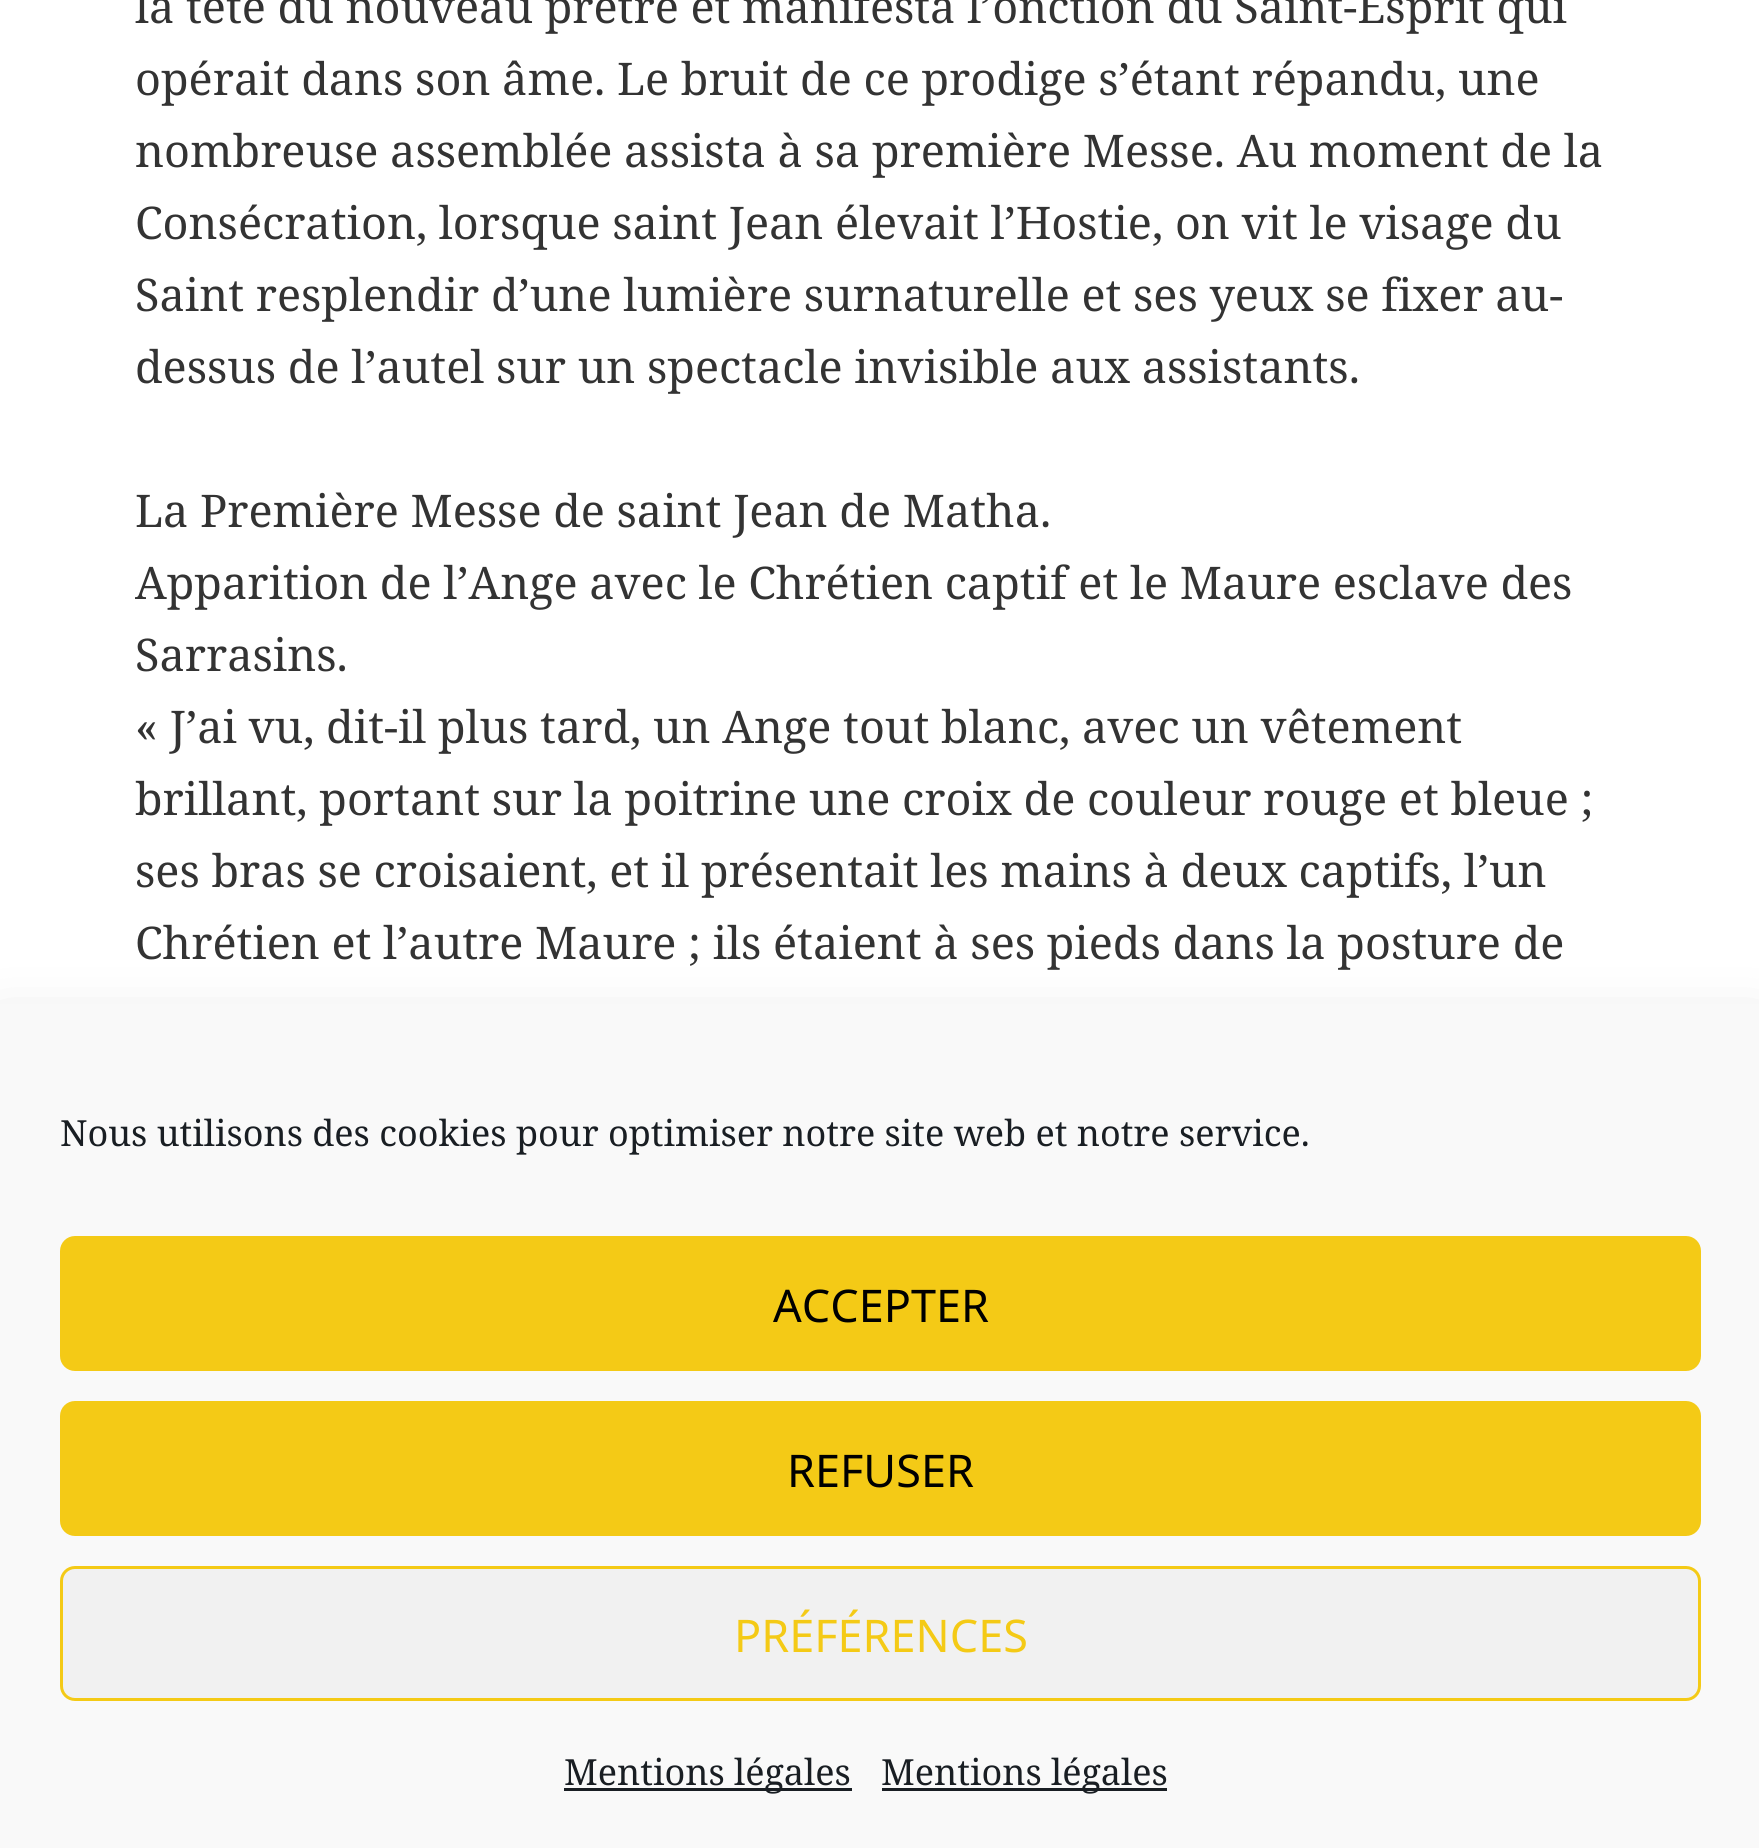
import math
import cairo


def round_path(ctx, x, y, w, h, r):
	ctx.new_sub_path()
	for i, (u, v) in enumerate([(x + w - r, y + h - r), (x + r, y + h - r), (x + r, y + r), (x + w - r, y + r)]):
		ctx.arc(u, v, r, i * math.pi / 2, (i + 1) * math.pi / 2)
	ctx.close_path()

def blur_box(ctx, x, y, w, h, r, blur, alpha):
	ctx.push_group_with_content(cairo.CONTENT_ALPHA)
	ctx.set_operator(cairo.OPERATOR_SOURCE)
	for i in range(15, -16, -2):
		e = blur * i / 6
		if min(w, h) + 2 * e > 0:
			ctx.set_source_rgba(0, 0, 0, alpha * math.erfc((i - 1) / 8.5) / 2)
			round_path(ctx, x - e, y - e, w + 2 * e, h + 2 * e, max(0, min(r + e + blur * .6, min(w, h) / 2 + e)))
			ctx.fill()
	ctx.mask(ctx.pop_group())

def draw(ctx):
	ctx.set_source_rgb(1, 1, 1)
	ctx.paint()
	ctx.select_font_face('Noto Serif')
	ctx.set_font_size(45)
	ctx.set_source_rgb(0.2, 0.2, 0.2)
	for x, y, s in [
		(135, 23, 'la tête du nouveau prêtre et manifesta l’onction du Saint-Esprit qui'),
		(135, 95, 'opérait dans son âme. Le bruit de ce prodige s’étant répandu, une'),
		(135, 167, 'nombreuse assemblée assista à sa première Messe. Au moment de la'),
		(135, 239, 'Consécration, lorsque saint Jean élevait l’Hostie, on vit le visage du'),
		(135, 311, 'Saint resplendir d’une lumière surnaturelle et ses yeux se fixer au-'),
		(135, 383, 'dessus de l’autel sur un spectacle invisible aux assistants.'),
		(135, 527, 'La Première Messe de saint Jean de Matha.'),
		(135, 599, 'Apparition de l’Ange avec le Chrétien captif et le Maure esclave des'),
		(135, 671, 'Sarrasins.'),
		(135, 743, '« J’ai vu, dit-il plus tard, un Ange tout blanc, avec un vêtement'),
		(135, 815, 'brillant, portant sur la poitrine une croix de couleur rouge et bleue ;'),
		(135, 887, 'ses bras se croisaient, et il présentait les mains à deux captifs, l’un'),
		(135, 959, 'Chrétien et l’autre Maure ; ils étaient à ses pieds dans la posture de'),
	]:
		ctx.move_to(x, y)
		ctx.show_text(s)
	ctx.set_source_rgb(0, 0, 0)
	blur_box(ctx, 0, 1032, 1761, 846, 0, 30, 0.19)
	ctx.set_source_rgb(0.976, 0.976, 0.976)
	ctx.rectangle(0, 1004, 1759, 844)
	ctx.fill()
	ctx.set_font_size(36)
	ctx.set_source_rgb(0.098, 0.118, 0.137)
	ctx.move_to(60, 1146)
	ctx.show_text('Nous utilisons des cookies pour optimiser notre site web et notre service.')
	ctx.set_source_rgb(0.957, 0.792, 0.086)
	round_path(ctx, 61.5, 1237.5, 1638, 132, 13.5)
	ctx.fill_preserve()
	ctx.set_line_width(3)
	ctx.stroke()
	ctx.select_font_face('Noto Sans')
	ctx.set_font_size(45)
	ctx.set_source_rgb(0, 0, 0)
	ctx.move_to(773, 1322)
	ctx.show_text('ACCEPTER')
	ctx.set_source_rgb(0.957, 0.792, 0.086)
	round_path(ctx, 61.5, 1402.5, 1638, 132, 13.5)
	ctx.fill_preserve()
	ctx.stroke()
	ctx.set_source_rgb(0, 0, 0)
	ctx.move_to(787, 1487)
	ctx.show_text('REFUSER')
	ctx.set_source_rgb(0.945, 0.945, 0.945)
	round_path(ctx, 61.5, 1567.5, 1638, 132, 13.5)
	ctx.fill_preserve()
	ctx.set_source_rgb(0.957, 0.792, 0.086)
	ctx.stroke()
	ctx.move_to(734, 1652)
	ctx.show_text('PRÉFÉRENCES')
	ctx.set_source_rgb(0.098, 0.118, 0.137)
	ctx.rectangle(564, 1788, 288, 3)
	ctx.fill()
	ctx.select_font_face('Noto Serif')
	ctx.set_font_size(36)
	ctx.move_to(564, 1785)
	ctx.show_text('Mentions légales')
	ctx.rectangle(882, 1788, 285, 3)
	ctx.fill()
	ctx.move_to(881, 1785)
	ctx.show_text('Mentions légales')


surface = cairo.ImageSurface(cairo.FORMAT_RGB24, 1759, 1848)
ctx = cairo.Context(surface)
options = cairo.FontOptions()
options.set_hint_metrics(cairo.HINT_METRICS_OFF)
options.set_hint_style(cairo.HINT_STYLE_NONE)
ctx.set_font_options(options)
ctx.set_miter_limit(4)
draw(ctx)
surface.write_to_png('image.png')
